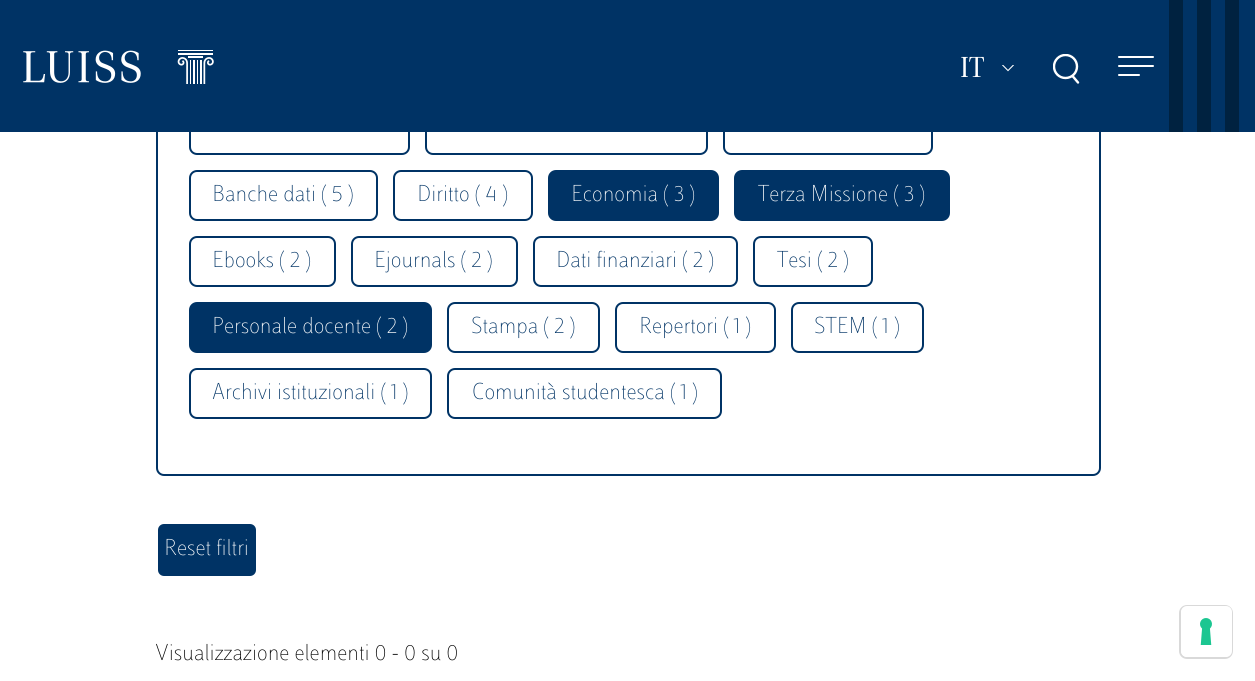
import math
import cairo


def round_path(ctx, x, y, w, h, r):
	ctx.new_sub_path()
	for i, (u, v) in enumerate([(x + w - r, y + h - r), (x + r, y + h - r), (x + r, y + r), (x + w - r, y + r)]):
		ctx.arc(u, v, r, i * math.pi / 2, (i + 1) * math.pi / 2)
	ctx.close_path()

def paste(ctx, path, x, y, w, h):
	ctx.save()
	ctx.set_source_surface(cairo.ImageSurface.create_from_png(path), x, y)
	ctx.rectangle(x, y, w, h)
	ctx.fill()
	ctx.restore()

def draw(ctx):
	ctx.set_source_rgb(1, 1, 1)
	ctx.paint()
	round_path(ctx, 157, 28, 943, 447, 7)
	ctx.set_source_rgb(0, 0.2, 0.396)
	ctx.stroke()
	round_path(ctx, 190, 105, 219, 49, 7)
	ctx.stroke()
	round_path(ctx, 426, 105, 281, 49, 7)
	ctx.stroke()
	round_path(ctx, 724, 105, 208, 49, 7)
	ctx.stroke()
	ctx.rectangle(0, 0, 1255, 132)
	ctx.fill()
	paste(ctx, 'media/1.png', 23, 50, 191, 34)
	ctx.save()
	ctx.rectangle(960, 47, 24, 45)
	ctx.clip()
	ctx.select_font_face('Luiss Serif')
	ctx.set_font_size(30)
	ctx.set_source_rgb(1, 1, 1)
	ctx.move_to(960, 77)
	ctx.show_text('IT')
	ctx.restore()
	paste(ctx, 'media/2.png', 1002, 65, 12, 7)
	ctx.save()
	ctx.rectangle(1053, 54, 26, 30)
	ctx.clip()
	ctx.arc(1065.5, 66.5, 11.5, 0, 2 * math.pi)
	ctx.set_source_rgb(1, 1, 1)
	ctx.set_line_width(2.4)
	ctx.stroke()
	ctx.restore()
	ctx.new_path()
	ctx.move_to(1078, 82.5)
	ctx.line_to(1072.5, 76)
	ctx.set_source_rgb(1, 1, 1)
	ctx.set_line_width(2.4)
	ctx.set_line_cap(cairo.LINE_CAP_ROUND)
	ctx.set_line_join(cairo.LINE_JOIN_ROUND)
	ctx.stroke()
	round_path(ctx, 1118, 56, 36, 2, 1)
	ctx.fill()
	round_path(ctx, 1118, 65, 36, 2, 1)
	ctx.fill()
	round_path(ctx, 1118, 74, 22, 2, 1)
	ctx.fill()
	ctx.set_source_rgb(0, 0.133, 0.251)
	ctx.rectangle(1169, 0, 14, 132)
	ctx.rectangle(1197, 0, 14, 132)
	ctx.rectangle(1225, 0, 14, 132)
	ctx.fill()
	round_path(ctx, 190, 171, 187, 49, 7)
	ctx.set_source_rgb(0, 0.2, 0.396)
	ctx.set_line_width(2)
	ctx.set_line_cap(cairo.LINE_CAP_BUTT)
	ctx.set_line_join(cairo.LINE_JOIN_MITER)
	ctx.stroke()
	ctx.select_font_face('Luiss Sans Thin')
	ctx.set_font_size(24)
	ctx.move_to(212, 201)
	ctx.show_text('Banche dati ( 5 )')
	round_path(ctx, 394, 171, 138, 49, 7)
	ctx.stroke()
	ctx.move_to(417, 201)
	ctx.show_text('Diritto ( 4 )')
	round_path(ctx, 549, 171, 169, 49, 7)
	ctx.fill_preserve()
	ctx.stroke()
	ctx.set_source_rgb(1, 1, 1)
	ctx.move_to(571, 201)
	ctx.show_text('Economia ( 3 )')
	ctx.set_source_rgb(0, 0.2, 0.396)
	round_path(ctx, 735, 171, 214, 49, 7)
	ctx.fill_preserve()
	ctx.stroke()
	ctx.set_source_rgb(1, 1, 1)
	ctx.move_to(758, 201)
	ctx.show_text('Terza Missione ( 3 )')
	round_path(ctx, 190, 237, 145, 49, 7)
	ctx.set_source_rgb(0, 0.2, 0.396)
	ctx.stroke()
	ctx.move_to(212, 267)
	ctx.show_text('Ebooks ( 2 )')
	round_path(ctx, 352, 237, 165, 49, 7)
	ctx.stroke()
	ctx.move_to(374, 267)
	ctx.show_text('Ejournals ( 2 )')
	round_path(ctx, 534, 237, 203, 49, 7)
	ctx.stroke()
	ctx.move_to(556, 267)
	ctx.show_text('Dati finanziari ( 2 )')
	round_path(ctx, 754, 237, 118, 49, 7)
	ctx.stroke()
	ctx.move_to(777, 267)
	ctx.show_text('Tesi ( 2 )')
	round_path(ctx, 190, 303, 241, 49, 7)
	ctx.fill_preserve()
	ctx.stroke()
	ctx.set_source_rgb(1, 1, 1)
	ctx.move_to(212, 333)
	ctx.show_text('Personale docente ( 2 )')
	round_path(ctx, 448, 303, 151, 49, 7)
	ctx.set_source_rgb(0, 0.2, 0.396)
	ctx.stroke()
	ctx.move_to(471, 333)
	ctx.show_text('Stampa ( 2 )')
	round_path(ctx, 616, 303, 159, 49, 7)
	ctx.stroke()
	ctx.move_to(639, 333)
	ctx.show_text('Repertori ( 1 )')
	round_path(ctx, 792, 303, 131, 49, 7)
	ctx.stroke()
	ctx.move_to(814, 333)
	ctx.show_text('STEM ( 1 )')
	round_path(ctx, 190, 369, 241, 49, 7)
	ctx.stroke()
	ctx.move_to(212, 399)
	ctx.show_text('Archivi istituzionali ( 1 )')
	round_path(ctx, 448, 369, 273, 49, 7)
	ctx.stroke()
	ctx.move_to(472, 399)
	ctx.show_text('Comunità studentesca ( 1 )')
	round_path(ctx, 157, 523, 100, 54, 7)
	ctx.fill_preserve()
	ctx.set_source_rgb(1, 1, 1)
	ctx.stroke()
	ctx.move_to(164, 555)
	ctx.show_text('Reset filtri')
	ctx.set_source_rgb(0.004, 0.004, 0.004)
	ctx.move_to(155, 660)
	ctx.show_text('Visualizzazione elementi 0 - 0 su 0')
	round_path(ctx, 1180, 606, 52, 52, 7)
	ctx.set_source_rgb(0.851, 0.851, 0.851)
	ctx.stroke()
	ctx.set_source_rgb(1, 1, 1)
	round_path(ctx, 1181, 606, 51, 51, 6)
	ctx.fill()
	paste(ctx, 'media/3.png', 1200, 618, 12, 27)


surface = cairo.ImageSurface(cairo.FORMAT_RGB24, 1255, 681)
ctx = cairo.Context(surface)
options = cairo.FontOptions()
options.set_hint_metrics(cairo.HINT_METRICS_OFF)
options.set_hint_style(cairo.HINT_STYLE_NONE)
ctx.set_font_options(options)
ctx.set_miter_limit(4)
draw(ctx)
surface.write_to_png('image.png')
